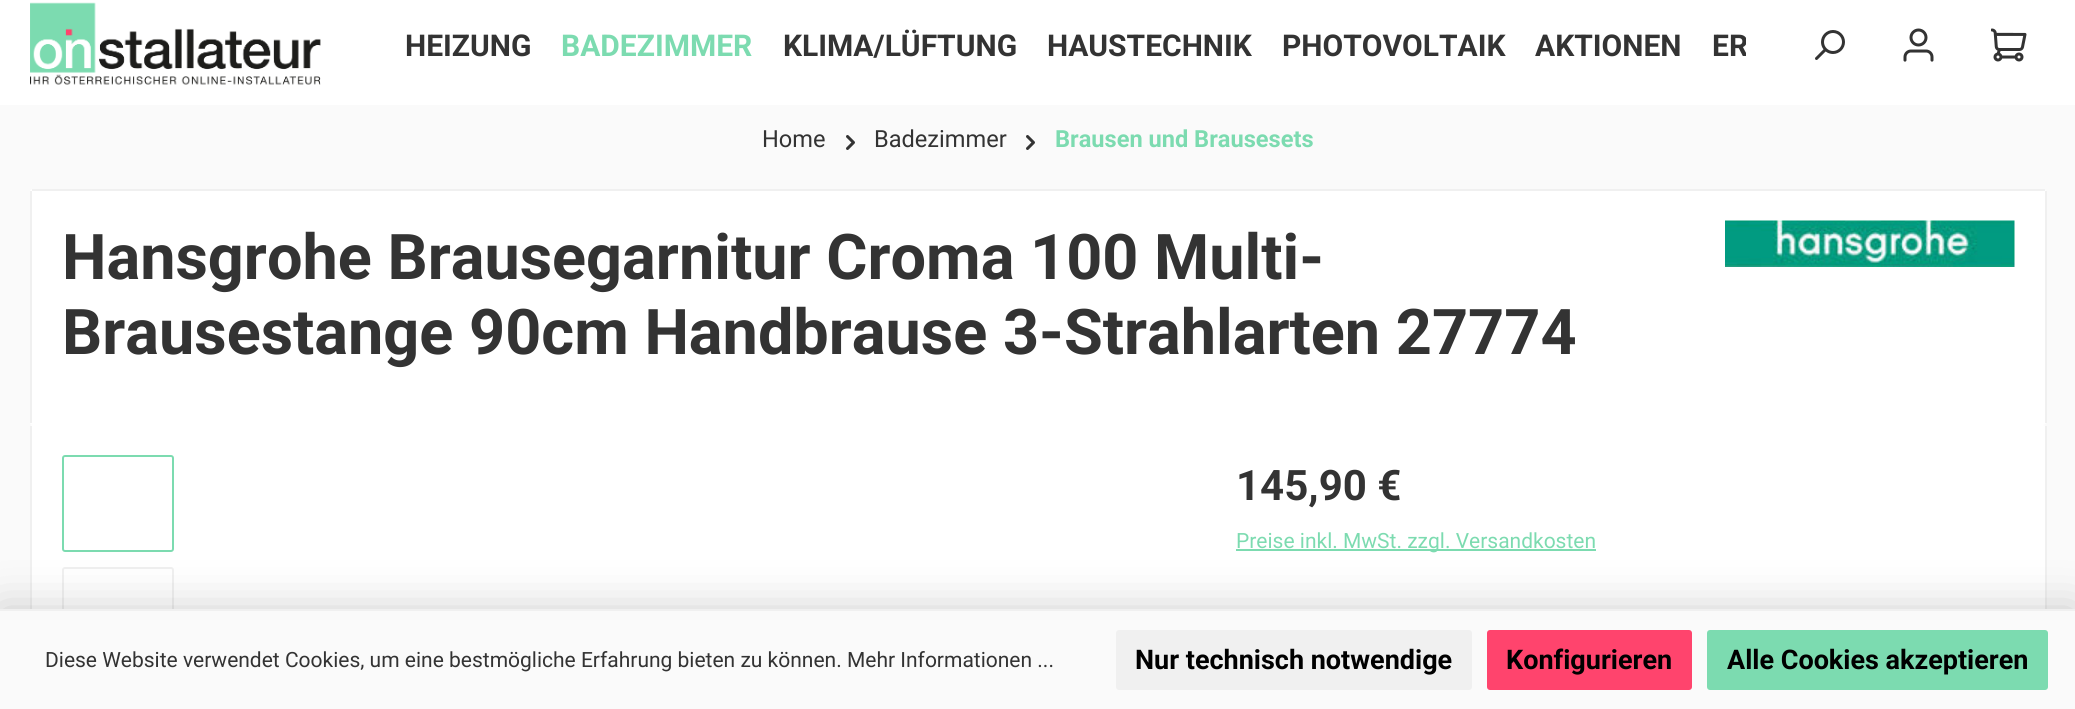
import math
import cairo


def round_path(ctx, x, y, w, h, r):
	ctx.new_sub_path()
	for i, (u, v) in enumerate([(x + w - r, y + h - r), (x + r, y + h - r), (x + r, y + r), (x + w - r, y + r)]):
		ctx.arc(u, v, r, i * math.pi / 2, (i + 1) * math.pi / 2)
	ctx.close_path()

def blur_box(ctx, x, y, w, h, r, blur, alpha):
	ctx.push_group_with_content(cairo.CONTENT_ALPHA)
	ctx.set_operator(cairo.OPERATOR_SOURCE)
	for i in range(15, -16, -2):
		e = blur * i / 6
		if min(w, h) + 2 * e > 0:
			ctx.set_source_rgba(0, 0, 0, alpha * math.erfc((i - 1) / 8.5) / 2)
			round_path(ctx, x - e, y - e, w + 2 * e, h + 2 * e, max(0, min(r + e + blur * .6, min(w, h) / 2 + e)))
			ctx.fill()
	ctx.mask(ctx.pop_group())

def paste(ctx, path, x, y, w, h):
	ctx.save()
	ctx.set_source_surface(cairo.ImageSurface.create_from_png(path), x, y)
	ctx.rectangle(x, y, w, h)
	ctx.fill()
	ctx.restore()

def draw(ctx):
	ctx.set_source_rgb(0.98, 0.98, 0.98)
	ctx.paint()
	ctx.set_source_rgb(1, 1, 1)
	ctx.rectangle(0, 0, 2075, 105)
	ctx.fill()
	paste(ctx, 'media/1.png', 30, 2, 291, 83)
	ctx.select_font_face('Roboto', cairo.FONT_SLANT_NORMAL, cairo.FONT_WEIGHT_BOLD)
	ctx.set_font_size(30)
	ctx.set_source_rgb(0.2, 0.2, 0.2)
	ctx.move_to(405, 56)
	ctx.show_text('HEIZUNG')
	ctx.set_source_rgb(0.486, 0.859, 0.69)
	ctx.move_to(561, 56)
	ctx.show_text('BADEZIMMER')
	ctx.set_source_rgb(0.2, 0.2, 0.2)
	for x, y, s in [
		(783, 56, 'KLIMA/LÜFTUNG'),
		(1047, 56, 'HAUSTECHNIK'),
		(1282, 56, 'PHOTOVOLTAIK'),
		(1535, 56, 'AKTIONEN'),
	]:
		ctx.move_to(x, y)
		ctx.show_text(s)
	ctx.save()
	ctx.rectangle(390, 23, 1356, 45)
	ctx.clip()
	ctx.move_to(1712, 56)
	ctx.show_text('ER')
	ctx.restore()
	paste(ctx, 'media/2.png', 1815, 30, 30, 30)
	paste(ctx, 'media/3.png', 1903, 28, 31, 34)
	paste(ctx, 'media/4.png', 1991, 28, 36, 34)
	ctx.select_font_face('Roboto')
	ctx.set_font_size(23.6)
	ctx.move_to(762, 147)
	ctx.show_text('Home')
	paste(ctx, 'media/5.png', 846, 135, 9, 15)
	ctx.move_to(874, 147)
	ctx.show_text('Badezimmer')
	paste(ctx, 'media/5.png', 1026, 135, 9, 15)
	ctx.select_font_face('Roboto', cairo.FONT_SLANT_NORMAL, cairo.FONT_WEIGHT_BOLD)
	ctx.set_source_rgb(0.486, 0.859, 0.69)
	ctx.move_to(1055, 147)
	ctx.show_text('Brausen und Brausesets')
	ctx.set_source_rgb(1, 1, 1)
	round_path(ctx, 30, 189, 2016, 236, 3)
	ctx.fill()
	ctx.set_source_rgb(0.941, 0.941, 0.941)
	ctx.rectangle(32, 189, 2013, 2)
	ctx.rectangle(2045, 191, 2, 232)
	ctx.rectangle(30, 191, 2, 232)
	ctx.fill()
	ctx.set_font_size(63)
	ctx.set_source_rgb(0.2, 0.2, 0.2)
	ctx.move_to(62, 279)
	ctx.show_text('Hansgrohe Brausegarnitur Croma 100 Multi-')
	ctx.move_to(62, 354)
	ctx.show_text('Brausestange 90cm Handbrause 3-Strahlarten 27774')
	paste(ctx, 'media/6.png', 1725, 220, 290, 47)
	ctx.set_source_rgb(1, 1, 1)
	round_path(ctx, 30, 425, 2016, 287, 3)
	ctx.fill()
	ctx.set_source_rgb(0.941, 0.941, 0.941)
	ctx.rectangle(2045, 426, 2, 183)
	ctx.fill()
	ctx.rectangle(30, 426, 2, 183)
	ctx.fill()
	round_path(ctx, 63, 456, 110, 95, 2)
	ctx.set_source_rgb(0.486, 0.859, 0.69)
	ctx.stroke()
	round_path(ctx, 63, 568, 110, 96, 2)
	ctx.set_source_rgb(0.941, 0.941, 0.941)
	ctx.stroke()
	ctx.set_font_size(42)
	ctx.set_source_rgb(0.2, 0.2, 0.2)
	ctx.move_to(1236, 500)
	ctx.show_text('145,90 €')
	ctx.set_source_rgb(0.486, 0.859, 0.69)
	ctx.rectangle(1236, 549, 360, 2)
	ctx.fill()
	ctx.select_font_face('Roboto')
	ctx.set_font_size(21)
	ctx.move_to(1236, 548)
	ctx.show_text('Preise inkl. MwSt. zzgl. Versandkosten')
	ctx.set_source_rgb(0, 0, 0)
	blur_box(ctx, 0, 609, 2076, 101, 0, 22.5, 0.2)
	ctx.set_source_rgb(0.98, 0.98, 0.98)
	ctx.rectangle(0, 611, 2075, 98)
	ctx.fill()
	ctx.set_source_rgb(0.941, 0.941, 0.941)
	ctx.rectangle(0, 609, 2075, 2)
	ctx.fill()
	ctx.set_source_rgb(0.2, 0.2, 0.2)
	ctx.move_to(45, 667)
	ctx.show_text('Diese Website verwendet Cookies, um eine bestmögliche Erfahrung bieten zu können. Mehr Informationen ...')
	ctx.set_source_rgb(0.941, 0.941, 0.941)
	round_path(ctx, 1116, 630, 356, 60, 3)
	ctx.fill()
	ctx.select_font_face('Roboto', cairo.FONT_SLANT_NORMAL, cairo.FONT_WEIGHT_BOLD)
	ctx.set_font_size(27)
	ctx.set_source_rgb(0, 0, 0)
	ctx.move_to(1135, 669)
	ctx.show_text('Nur technisch notwendige')
	ctx.set_source_rgb(1, 0.267, 0.427)
	round_path(ctx, 1488, 631, 203, 58, 2)
	ctx.fill_preserve()
	ctx.stroke()
	ctx.set_source_rgb(0, 0, 0)
	ctx.move_to(1506, 669)
	ctx.show_text('Konfigurieren')
	ctx.set_source_rgb(0.486, 0.859, 0.69)
	round_path(ctx, 1708, 631, 339, 58, 2)
	ctx.fill_preserve()
	ctx.stroke()
	ctx.set_source_rgb(0, 0, 0)
	ctx.move_to(1727, 669)
	ctx.show_text('Alle Cookies akzeptieren')


surface = cairo.ImageSurface(cairo.FORMAT_RGB24, 2075, 709)
ctx = cairo.Context(surface)
options = cairo.FontOptions()
options.set_hint_metrics(cairo.HINT_METRICS_OFF)
options.set_hint_style(cairo.HINT_STYLE_NONE)
ctx.set_font_options(options)
ctx.set_miter_limit(4)
draw(ctx)
surface.write_to_png('image.png')
